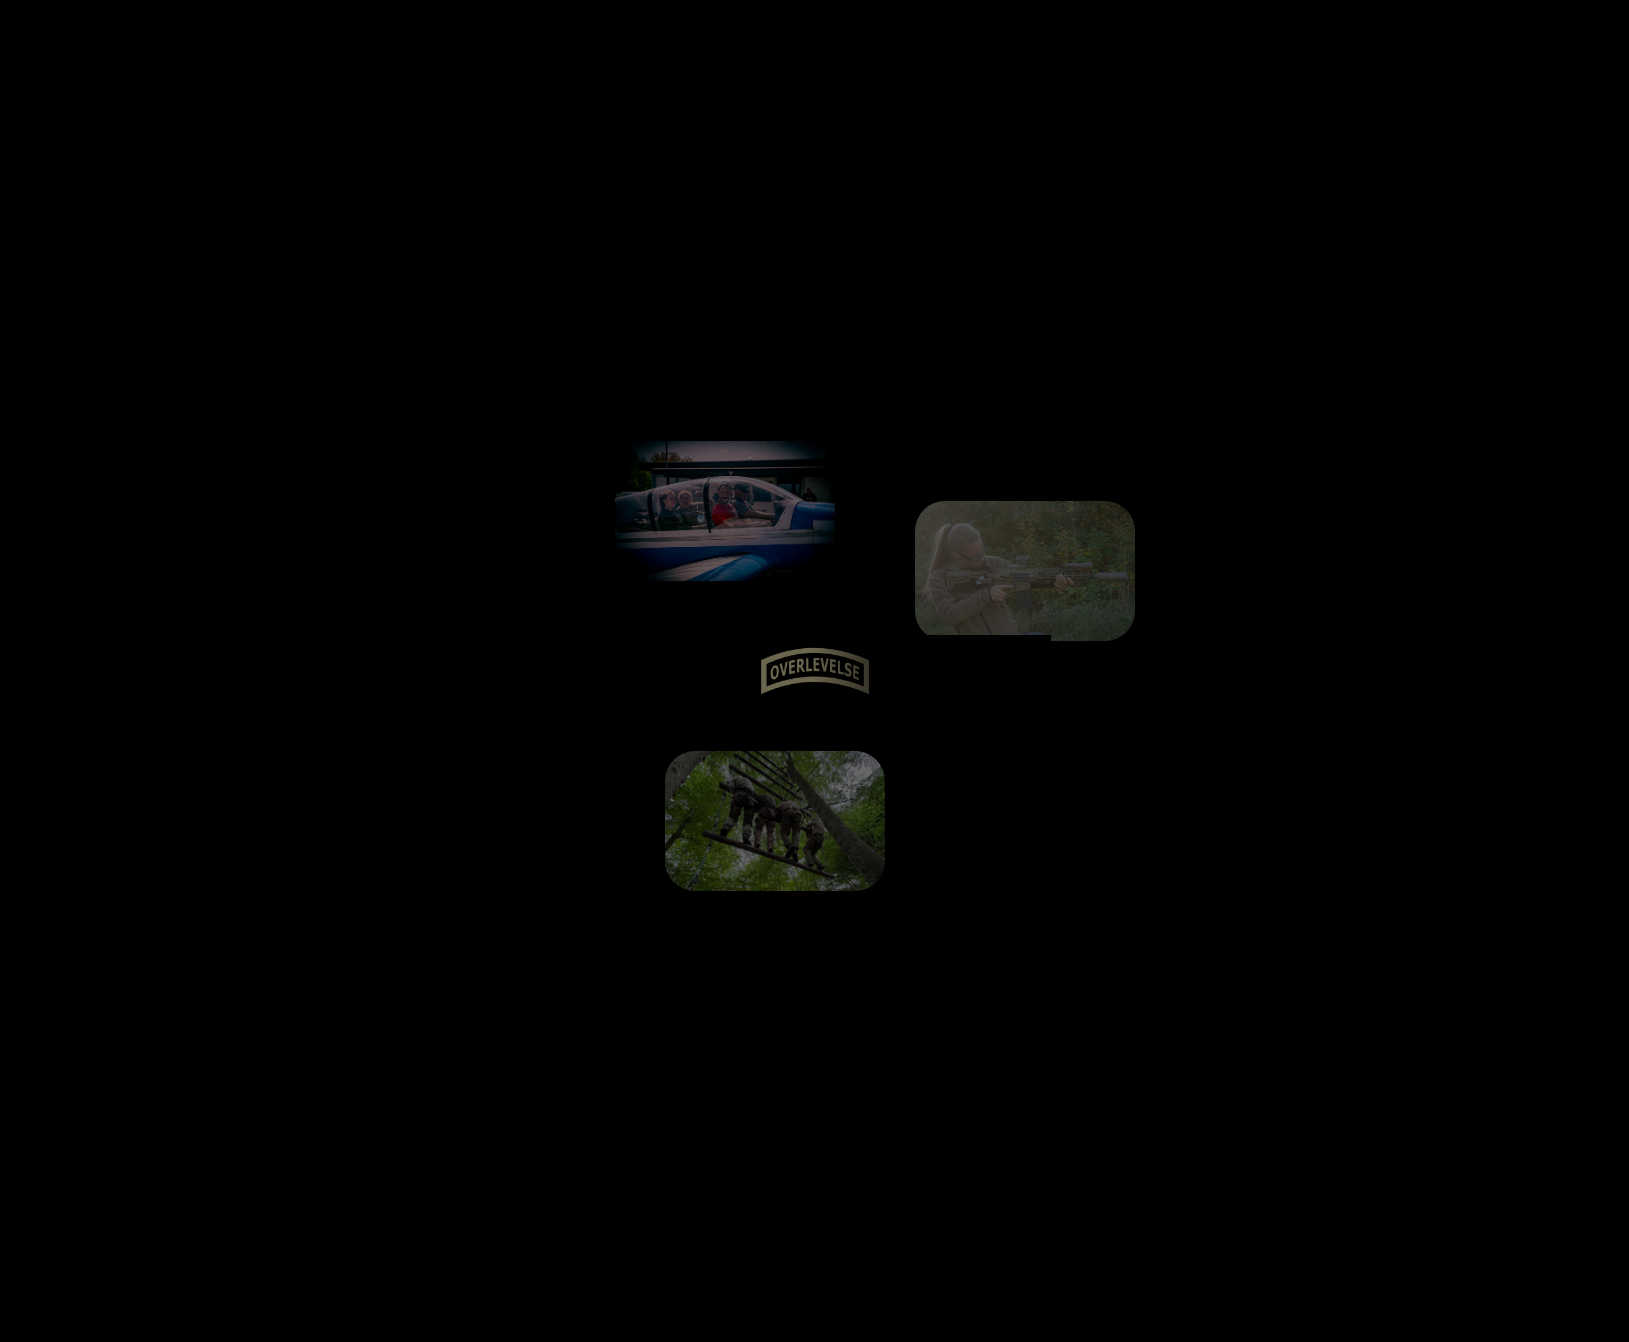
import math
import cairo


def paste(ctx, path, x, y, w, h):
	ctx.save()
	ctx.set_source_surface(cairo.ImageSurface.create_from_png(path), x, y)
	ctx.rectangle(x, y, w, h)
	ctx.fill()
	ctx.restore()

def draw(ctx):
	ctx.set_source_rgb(0, 0, 0)
	ctx.paint()
	paste(ctx, 'media/1.png', 615, 441, 220, 140)
	paste(ctx, 'media/2.png', 915, 501, 220, 140)
	paste(ctx, 'media/3.png', 665, 751, 220, 140)
	paste(ctx, 'media/4.png', 761, 647, 108, 48)
	gradient = cairo.LinearGradient(811, 671, 1051, 671)
	gradient.add_color_stop_rgba(0, 0, 0, 0, 0)
	gradient.add_color_stop_rgba(0.5, 0, 0, 0, 1)
	gradient.add_color_stop_rgba(1, 0, 0, 0, 1)
	ctx.set_source(gradient)
	ctx.rectangle(814, 635, 237, 60)
	ctx.fill()


surface = cairo.ImageSurface(cairo.FORMAT_RGB24, 1629, 1342)
ctx = cairo.Context(surface)
options = cairo.FontOptions()
options.set_hint_metrics(cairo.HINT_METRICS_OFF)
options.set_hint_style(cairo.HINT_STYLE_NONE)
ctx.set_font_options(options)
ctx.set_miter_limit(4)
draw(ctx)
surface.write_to_png('image.png')
